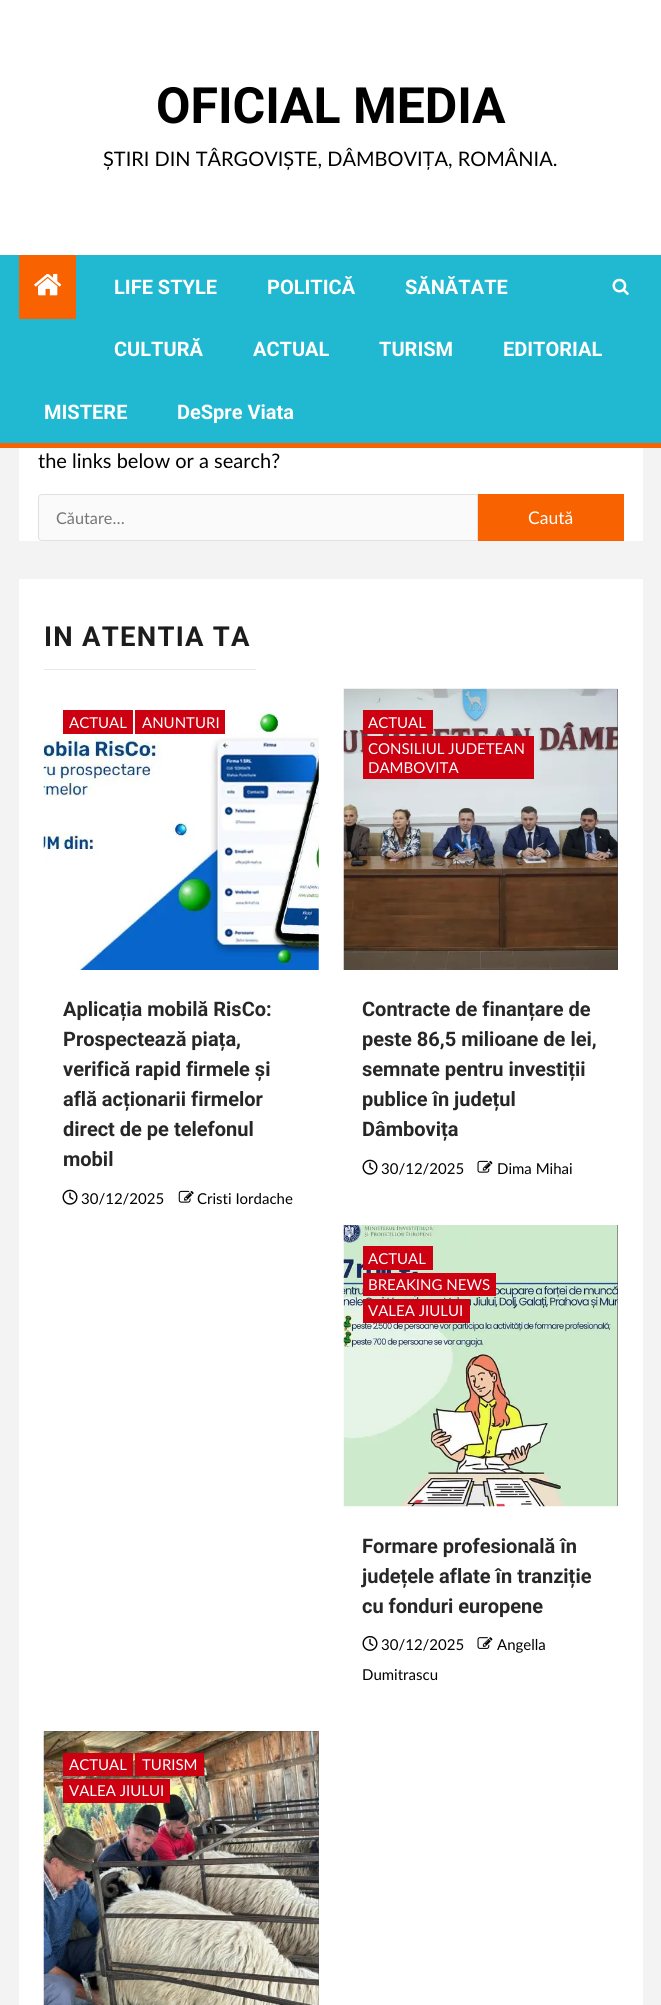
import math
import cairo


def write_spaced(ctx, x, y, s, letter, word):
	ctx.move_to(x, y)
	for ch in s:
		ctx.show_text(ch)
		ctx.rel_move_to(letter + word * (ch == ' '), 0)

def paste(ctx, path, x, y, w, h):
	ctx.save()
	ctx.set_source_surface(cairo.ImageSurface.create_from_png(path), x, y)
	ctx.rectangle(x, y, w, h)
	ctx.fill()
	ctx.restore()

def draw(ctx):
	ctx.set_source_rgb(0.953, 0.953, 0.953)
	ctx.paint()
	ctx.set_source_rgb(1, 1, 1)
	ctx.rectangle(0, 0, 661, 255)
	ctx.fill()
	ctx.select_font_face('Roboto', cairo.FONT_SLANT_NORMAL, cairo.FONT_WEIGHT_BOLD)
	ctx.set_font_size(50)
	ctx.set_source_rgb(0, 0, 0)
	ctx.move_to(156, 123)
	ctx.show_text('OFICIAL MEDIA')
	ctx.select_font_face('Lato')
	ctx.set_font_size(20)
	ctx.move_to(103, 166)
	ctx.show_text('ȘTIRI DIN TÂRGOVIȘTE, DÂMBOVIȚA, ROMÂNIA.')
	ctx.set_source_rgb(0.129, 0.725, 0.82)
	ctx.rectangle(0, 255, 661, 188)
	ctx.fill()
	ctx.set_source_rgb(0.969, 0.384, 0)
	ctx.rectangle(0, 443, 661, 5)
	ctx.rectangle(19, 255, 57, 64)
	ctx.fill()
	paste(ctx, 'media/1.png', 34, 273, 28, 23)
	ctx.select_font_face('Roboto', cairo.FONT_SLANT_NORMAL, cairo.FONT_WEIGHT_BOLD)
	ctx.set_source_rgb(1, 1, 1)
	for x, y, s in [
		(114, 294, 'LIFE STYLE'),
		(267, 294, 'POLITICĂ'),
		(405, 294, 'SĂNĂTATE'),
		(114, 356, 'CULTURĂ'),
		(253, 356, 'ACTUAL'),
		(379, 356, 'TURISM'),
		(503, 356, 'EDITORIAL'),
		(44, 419, 'MISTERE'),
		(177, 419, 'DeSpre Viata'),
	]:
		ctx.move_to(x, y)
		ctx.show_text(s)
	paste(ctx, 'media/2.png', 612, 278, 17, 17)
	ctx.rectangle(19, 448, 624, 93)
	ctx.fill()
	ctx.select_font_face('Lato')
	ctx.set_source_rgb(0, 0, 0)
	ctx.move_to(38, 468)
	ctx.show_text('the links below or a search?')
	ctx.set_source_rgb(0.98, 0.98, 0.98)
	ctx.new_path()
	ctx.move_to(42, 494.5)
	ctx.line_to(477.5, 494.5)
	ctx.line_to(477.5, 540.5)
	ctx.line_to(42, 540.5)
	ctx.curve_to(40, 540.5, 38.5, 539, 38.5, 537)
	ctx.line_to(38.5, 498)
	ctx.curve_to(38.5, 496, 40, 494.5, 42, 494.5)
	ctx.close_path()
	ctx.fill_preserve()
	ctx.set_source_rgb(0.882, 0.882, 0.882)
	ctx.set_line_width(1)
	ctx.stroke()
	ctx.set_font_size(16.25)
	ctx.set_source_rgb(0.459, 0.459, 0.459)
	ctx.move_to(56, 524)
	ctx.show_text('Căutare…')
	ctx.set_source_rgb(0.969, 0.384, 0)
	ctx.rectangle(478, 494, 146, 47)
	ctx.fill()
	ctx.set_font_size(17.5)
	ctx.set_source_rgb(1, 1, 1)
	ctx.move_to(528, 524)
	ctx.show_text('Caută')
	ctx.rectangle(19, 579, 624, 1426)
	ctx.fill()
	ctx.select_font_face('Roboto', cairo.FONT_SLANT_NORMAL, cairo.FONT_WEIGHT_BOLD)
	ctx.set_font_size(27.5)
	ctx.set_source_rgb(0.11, 0.11, 0.11)
	write_spaced(ctx, 44, 646, 'IN ATENTIA TA', 1.25, 0)
	ctx.set_source_rgb(0.91, 0.91, 0.91)
	ctx.rectangle(44, 669, 212, 1)
	ctx.fill()
	paste(ctx, 'media/3.png', 43, 689, 276, 281)
	ctx.set_source_rgb(0.8, 0, 0.063)
	ctx.rectangle(63, 710, 70, 24)
	ctx.fill()
	ctx.select_font_face('Lato')
	ctx.set_font_size(15)
	ctx.set_source_rgb(1, 1, 1)
	ctx.move_to(69, 728)
	ctx.show_text('ACTUAL')
	ctx.set_source_rgb(0.8, 0, 0.063)
	ctx.rectangle(135, 710, 90, 24)
	ctx.fill()
	ctx.set_source_rgb(1, 1, 1)
	ctx.move_to(142, 728)
	ctx.show_text('ANUNTURI')
	ctx.select_font_face('Roboto', cairo.FONT_SLANT_NORMAL, cairo.FONT_WEIGHT_BOLD)
	ctx.set_font_size(20)
	ctx.set_source_rgb(0.153, 0.153, 0.153)
	for x, y, s in [
		(63, 1016, 'Aplicația mobilă RisCo:'),
		(63, 1046, 'Prospectează piața,'),
		(63, 1076, 'verifică rapid firmele și'),
		(63, 1106, 'află acționarii firmelor'),
		(63, 1136, 'direct de pe telefonul'),
		(63, 1166, 'mobil'),
	]:
		ctx.move_to(x, y)
		ctx.show_text(s)
	paste(ctx, 'media/4.png', 62, 1189, 16, 16)
	ctx.select_font_face('Lato')
	ctx.set_font_size(15)
	ctx.set_source_rgb(0, 0, 0)
	ctx.move_to(81, 1204)
	ctx.show_text('30/12/2025')
	paste(ctx, 'media/5.png', 178, 1190, 16, 13)
	ctx.move_to(197, 1204)
	ctx.show_text('Cristi Iordache')
	ctx.set_source_rgb(0.251, 0.251, 0.251)
	ctx.rectangle(617, 689, 1, 281)
	ctx.fill()
	paste(ctx, 'media/6.png', 343, 688, 275, 282)
	ctx.set_source_rgb(0.8, 0, 0.063)
	ctx.rectangle(363, 710, 70, 24)
	ctx.fill()
	ctx.set_source_rgb(1, 1, 1)
	ctx.move_to(368, 728)
	ctx.show_text('ACTUAL')
	ctx.set_source_rgb(0.8, 0, 0.063)
	ctx.rectangle(363, 736, 171, 43)
	ctx.fill()
	ctx.set_source_rgb(1, 1, 1)
	ctx.move_to(368, 754)
	ctx.show_text('CONSILIUL JUDETEAN')
	ctx.move_to(368, 773)
	ctx.show_text('DAMBOVITA')
	ctx.select_font_face('Roboto', cairo.FONT_SLANT_NORMAL, cairo.FONT_WEIGHT_BOLD)
	ctx.set_font_size(20)
	ctx.set_source_rgb(0.153, 0.153, 0.153)
	for x, y, s in [
		(362, 1016, 'Contracte de finanțare de'),
		(362, 1046, 'peste 86,5 milioane de lei,'),
		(362, 1076, 'semnate pentru investiții'),
		(362, 1106, 'publice în județul'),
		(362, 1136, 'Dâmbovița'),
	]:
		ctx.move_to(x, y)
		ctx.show_text(s)
	paste(ctx, 'media/4.png', 362, 1159, 16, 16)
	ctx.select_font_face('Lato')
	ctx.set_font_size(15)
	ctx.set_source_rgb(0, 0, 0)
	ctx.move_to(381, 1174)
	ctx.show_text('30/12/2025')
	paste(ctx, 'media/7.png', 477, 1160, 16, 13)
	ctx.move_to(497, 1174)
	ctx.show_text('Dima Mihai')
	ctx.set_source_rgb(0.251, 0.251, 0.251)
	ctx.rectangle(617, 1225, 1, 281)
	ctx.fill()
	paste(ctx, 'media/8.png', 343, 1225, 275, 282)
	ctx.set_source_rgb(0.8, 0, 0.063)
	ctx.rectangle(363, 1246, 70, 24)
	ctx.fill()
	ctx.set_source_rgb(1, 1, 1)
	ctx.move_to(368, 1264)
	ctx.show_text('ACTUAL')
	ctx.set_source_rgb(0.8, 0, 0.063)
	ctx.rectangle(363, 1273, 133, 23)
	ctx.fill()
	ctx.set_source_rgb(1, 1, 1)
	ctx.move_to(368, 1290)
	ctx.show_text('BREAKING NEWS')
	ctx.set_source_rgb(0.8, 0, 0.063)
	ctx.rectangle(363, 1299, 107, 24)
	ctx.fill()
	ctx.set_source_rgb(1, 1, 1)
	ctx.move_to(368, 1316)
	ctx.show_text('VALEA JIULUI')
	ctx.select_font_face('Roboto', cairo.FONT_SLANT_NORMAL, cairo.FONT_WEIGHT_BOLD)
	ctx.set_font_size(20)
	ctx.set_source_rgb(0.153, 0.153, 0.153)
	for x, y, s in [
		(362, 1553, 'Formare profesională în'),
		(362, 1583, 'județele aflate în tranziție'),
		(362, 1613, 'cu fonduri europene'),
	]:
		ctx.move_to(x, y)
		ctx.show_text(s)
	paste(ctx, 'media/9.png', 362, 1636, 16, 15)
	ctx.select_font_face('Lato')
	ctx.set_font_size(15)
	ctx.set_source_rgb(0, 0, 0)
	ctx.move_to(381, 1650)
	ctx.show_text('30/12/2025')
	paste(ctx, 'media/10.png', 477, 1637, 16, 12)
	ctx.move_to(497, 1650)
	ctx.show_text('Angella')
	ctx.move_to(362, 1680)
	ctx.show_text('Dumitrascu')
	ctx.set_source_rgb(0.251, 0.251, 0.251)
	ctx.rectangle(44, 1731, 275, 274)
	ctx.fill()
	paste(ctx, 'media/11.png', 43, 1731, 276, 274)
	ctx.set_source_rgb(0.8, 0, 0.063)
	ctx.rectangle(63, 1753, 70, 23)
	ctx.fill()
	ctx.set_source_rgb(1, 1, 1)
	ctx.move_to(69, 1770)
	ctx.show_text('ACTUAL')
	ctx.set_source_rgb(0.8, 0, 0.063)
	ctx.rectangle(135, 1753, 69, 23)
	ctx.fill()
	ctx.set_source_rgb(1, 1, 1)
	ctx.move_to(142, 1770)
	ctx.show_text('TURISM')
	ctx.set_source_rgb(0.8, 0, 0.063)
	ctx.rectangle(63, 1779, 107, 24)
	ctx.fill()
	ctx.set_source_rgb(1, 1, 1)
	ctx.move_to(69, 1796)
	ctx.show_text('VALEA JIULUI')


surface = cairo.ImageSurface(cairo.FORMAT_RGB24, 661, 2005)
ctx = cairo.Context(surface)
options = cairo.FontOptions()
options.set_hint_metrics(cairo.HINT_METRICS_OFF)
options.set_hint_style(cairo.HINT_STYLE_NONE)
ctx.set_font_options(options)
ctx.set_miter_limit(4)
draw(ctx)
surface.write_to_png('image.png')
